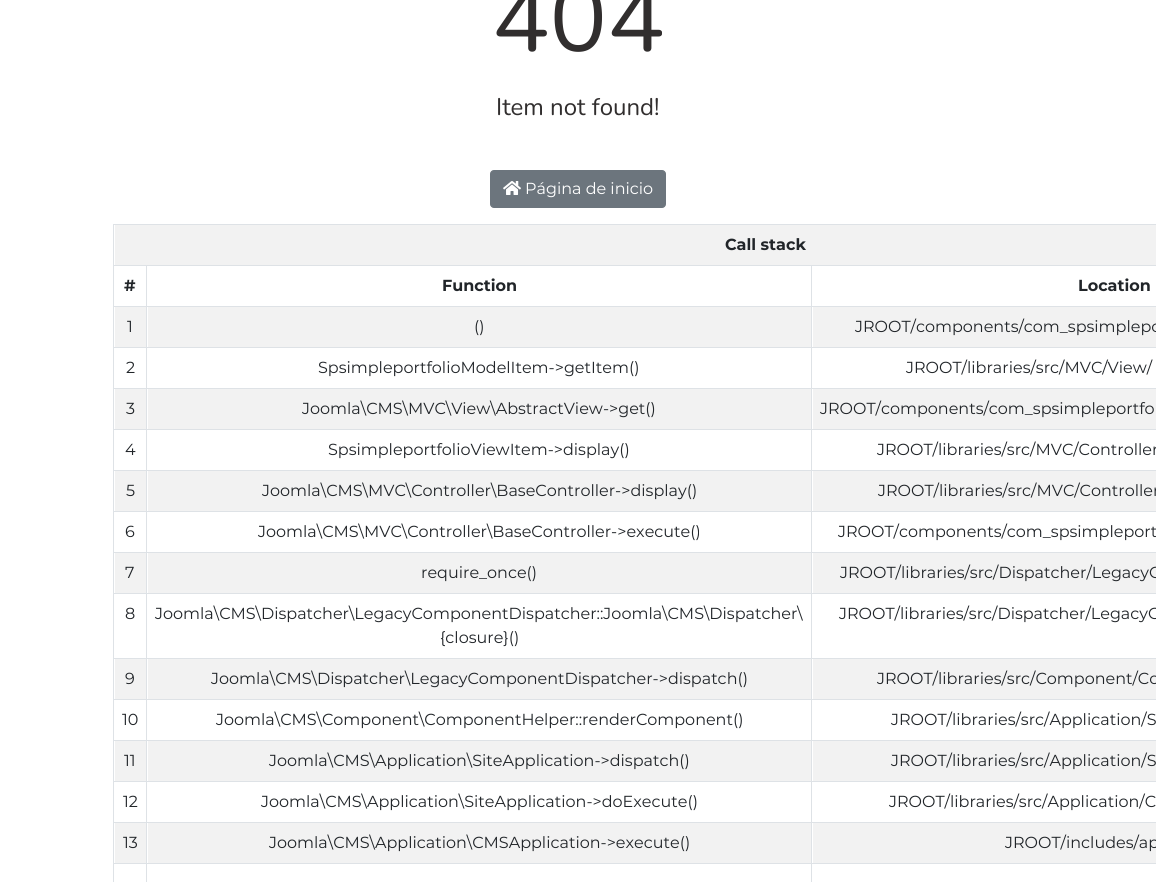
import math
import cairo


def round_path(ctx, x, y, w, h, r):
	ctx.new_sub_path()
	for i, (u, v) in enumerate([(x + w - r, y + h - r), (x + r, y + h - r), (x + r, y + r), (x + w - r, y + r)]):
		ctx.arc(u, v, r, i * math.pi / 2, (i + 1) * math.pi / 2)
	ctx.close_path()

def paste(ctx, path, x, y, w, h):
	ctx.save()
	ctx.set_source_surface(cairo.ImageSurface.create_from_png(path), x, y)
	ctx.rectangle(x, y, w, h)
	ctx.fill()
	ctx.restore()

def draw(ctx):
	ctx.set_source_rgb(1, 1, 1)
	ctx.paint()
	ctx.select_font_face('Nunito')
	ctx.set_font_size(96)
	ctx.set_source_rgb(0.192, 0.18, 0.18)
	ctx.move_to(492, 51)
	ctx.show_text('404')
	ctx.set_font_size(24)
	ctx.move_to(496, 115)
	ctx.show_text('Item not found!')
	ctx.set_source_rgb(0.424, 0.459, 0.49)
	round_path(ctx, 490.5, 170.5, 175, 37, 3.5)
	ctx.fill_preserve()
	ctx.set_line_width(1)
	ctx.stroke()
	paste(ctx, 'media/1.png', 503, 181, 18, 14)
	ctx.select_font_face('Montserrat')
	ctx.set_font_size(16)
	ctx.set_source_rgb(1, 1, 1)
	ctx.move_to(525, 194)
	ctx.show_text('Página de inicio')
	ctx.set_source_rgb(0.871, 0.886, 0.902)
	ctx.rectangle(113, 863, 1043, 1)
	ctx.rectangle(113, 224, 1043, 1)
	ctx.rectangle(113, 265, 1043, 1)
	ctx.rectangle(113, 306, 1043, 1)
	ctx.rectangle(113, 347, 1043, 1)
	ctx.rectangle(113, 388, 1043, 1)
	ctx.rectangle(113, 429, 1043, 1)
	ctx.rectangle(113, 470, 1043, 1)
	ctx.rectangle(113, 511, 1043, 1)
	ctx.rectangle(113, 552, 1043, 1)
	ctx.rectangle(113, 593, 1043, 1)
	ctx.rectangle(113, 658, 1043, 1)
	ctx.rectangle(113, 699, 1043, 1)
	ctx.rectangle(113, 740, 1043, 1)
	ctx.rectangle(113, 781, 1043, 1)
	ctx.rectangle(113, 822, 1043, 1)
	ctx.rectangle(113, 224, 1, 658)
	ctx.rectangle(146, 265, 1, 617)
	ctx.rectangle(811, 265, 1, 617)
	ctx.fill()
	ctx.set_source_rgb(0.949, 0.949, 0.949)
	ctx.rectangle(115, 225, 1041, 40)
	ctx.fill()
	ctx.select_font_face('Montserrat', cairo.FONT_SLANT_NORMAL, cairo.FONT_WEIGHT_BOLD)
	ctx.set_source_rgb(0.129, 0.145, 0.161)
	for x, y, s in [
		(725, 250, 'Call stack'),
		(124, 291, '#'),
		(442, 291, 'Function'),
		(1078, 291, 'Location'),
	]:
		ctx.move_to(x, y)
		ctx.show_text(s)
	ctx.set_source_rgb(0.949, 0.949, 0.949)
	ctx.rectangle(115, 307, 31, 40)
	ctx.fill()
	ctx.select_font_face('Montserrat')
	ctx.set_source_rgb(0.129, 0.145, 0.161)
	ctx.move_to(127, 332)
	ctx.show_text('1')
	ctx.set_source_rgb(0.949, 0.949, 0.949)
	ctx.rectangle(148, 307, 663, 40)
	ctx.fill()
	ctx.set_source_rgb(0.129, 0.145, 0.161)
	ctx.move_to(474, 332)
	ctx.show_text('()')
	ctx.set_source_rgb(0.949, 0.949, 0.949)
	ctx.rectangle(813, 307, 343, 40)
	ctx.fill()
	ctx.set_source_rgb(0.129, 0.145, 0.161)
	for x, y, s in [
		(855, 332, 'JROOT/components/com_spsimplepo'),
		(126, 373, '2'),
		(318, 373, 'SpsimpleportfolioModelItem->getItem()'),
		(906, 373, 'JROOT/libraries/src/MVC/View/'),
	]:
		ctx.move_to(x, y)
		ctx.show_text(s)
	ctx.set_source_rgb(0.949, 0.949, 0.949)
	ctx.rectangle(115, 389, 31, 40)
	ctx.fill()
	ctx.set_source_rgb(0.129, 0.145, 0.161)
	ctx.move_to(126, 414)
	ctx.show_text('3')
	ctx.set_source_rgb(0.949, 0.949, 0.949)
	ctx.rectangle(148, 389, 663, 40)
	ctx.fill()
	ctx.set_source_rgb(0.129, 0.145, 0.161)
	ctx.move_to(302, 414)
	ctx.show_text('Joomla\\CMS\\MVC\\View\\AbstractView->get()')
	ctx.set_source_rgb(0.949, 0.949, 0.949)
	ctx.rectangle(813, 389, 343, 40)
	ctx.fill()
	ctx.set_source_rgb(0.129, 0.145, 0.161)
	for x, y, s in [
		(820, 414, 'JROOT/components/com_spsimpleportfo'),
		(125, 455, '4'),
		(328, 455, 'SpsimpleportfolioViewItem->display()'),
		(877, 455, 'JROOT/libraries/src/MVC/Controller'),
	]:
		ctx.move_to(x, y)
		ctx.show_text(s)
	ctx.set_source_rgb(0.949, 0.949, 0.949)
	ctx.rectangle(115, 471, 31, 40)
	ctx.fill()
	ctx.set_source_rgb(0.129, 0.145, 0.161)
	ctx.move_to(126, 496)
	ctx.show_text('5')
	ctx.set_source_rgb(0.949, 0.949, 0.949)
	ctx.rectangle(148, 471, 663, 40)
	ctx.fill()
	ctx.set_source_rgb(0.129, 0.145, 0.161)
	ctx.move_to(262, 496)
	ctx.show_text('Joomla\\CMS\\MVC\\Controller\\BaseController->display()')
	ctx.set_source_rgb(0.949, 0.949, 0.949)
	ctx.rectangle(813, 471, 343, 40)
	ctx.fill()
	ctx.set_source_rgb(0.129, 0.145, 0.161)
	for x, y, s in [
		(878, 496, 'JROOT/libraries/src/MVC/Controller'),
		(125, 537, '6'),
		(258, 537, 'Joomla\\CMS\\MVC\\Controller\\BaseController->execute()'),
		(838, 537, 'JROOT/components/com_spsimpleport'),
	]:
		ctx.move_to(x, y)
		ctx.show_text(s)
	ctx.set_source_rgb(0.949, 0.949, 0.949)
	ctx.rectangle(115, 553, 31, 40)
	ctx.fill()
	ctx.set_source_rgb(0.129, 0.145, 0.161)
	ctx.move_to(125, 578)
	ctx.show_text('7')
	ctx.set_source_rgb(0.949, 0.949, 0.949)
	ctx.rectangle(148, 553, 663, 40)
	ctx.fill()
	ctx.set_source_rgb(0.129, 0.145, 0.161)
	ctx.move_to(421, 578)
	ctx.show_text('require_once()')
	ctx.set_source_rgb(0.949, 0.949, 0.949)
	ctx.rectangle(813, 553, 343, 40)
	ctx.fill()
	ctx.set_source_rgb(0.129, 0.145, 0.161)
	for x, y, s in [
		(840, 578, 'JROOT/libraries/src/Dispatcher/LegacyC'),
		(125, 619, '8'),
		(155, 619, 'Joomla\\CMS\\Dispatcher\\LegacyComponentDispatcher::Joomla\\CMS\\Dispatcher\\'),
		(440, 643, '{closure}()'),
		(839, 619, 'JROOT/libraries/src/Dispatcher/LegacyC'),
	]:
		ctx.move_to(x, y)
		ctx.show_text(s)
	ctx.set_source_rgb(0.949, 0.949, 0.949)
	ctx.rectangle(115, 659, 31, 40)
	ctx.fill()
	ctx.set_source_rgb(0.129, 0.145, 0.161)
	ctx.move_to(125, 684)
	ctx.show_text('9')
	ctx.set_source_rgb(0.949, 0.949, 0.949)
	ctx.rectangle(148, 659, 663, 40)
	ctx.fill()
	ctx.set_source_rgb(0.129, 0.145, 0.161)
	ctx.move_to(211, 684)
	ctx.show_text('Joomla\\CMS\\Dispatcher\\LegacyComponentDispatcher->dispatch()')
	ctx.set_source_rgb(0.949, 0.949, 0.949)
	ctx.rectangle(813, 659, 343, 40)
	ctx.fill()
	ctx.set_source_rgb(0.129, 0.145, 0.161)
	for x, y, s in [
		(877, 684, 'JROOT/libraries/src/Component/Co'),
		(122, 725, '10'),
		(216, 725, 'Joomla\\CMS\\Component\\ComponentHelper::renderComponent()'),
		(891, 725, 'JROOT/libraries/src/Application/S'),
	]:
		ctx.move_to(x, y)
		ctx.show_text(s)
	ctx.set_source_rgb(0.949, 0.949, 0.949)
	ctx.rectangle(115, 741, 31, 40)
	ctx.fill()
	ctx.set_source_rgb(0.129, 0.145, 0.161)
	ctx.move_to(124, 766)
	ctx.show_text('11')
	ctx.set_source_rgb(0.949, 0.949, 0.949)
	ctx.rectangle(148, 741, 663, 40)
	ctx.fill()
	ctx.set_source_rgb(0.129, 0.145, 0.161)
	ctx.move_to(269, 766)
	ctx.show_text('Joomla\\CMS\\Application\\SiteApplication->dispatch()')
	ctx.set_source_rgb(0.949, 0.949, 0.949)
	ctx.rectangle(813, 741, 343, 40)
	ctx.fill()
	ctx.set_source_rgb(0.129, 0.145, 0.161)
	for x, y, s in [
		(891, 766, 'JROOT/libraries/src/Application/S'),
		(123, 807, '12'),
		(261, 807, 'Joomla\\CMS\\Application\\SiteApplication->doExecute()'),
		(889, 807, 'JROOT/libraries/src/Application/C'),
	]:
		ctx.move_to(x, y)
		ctx.show_text(s)
	ctx.set_source_rgb(0.949, 0.949, 0.949)
	ctx.rectangle(115, 823, 31, 40)
	ctx.fill()
	ctx.set_source_rgb(0.129, 0.145, 0.161)
	ctx.move_to(123, 848)
	ctx.show_text('13')
	ctx.set_source_rgb(0.949, 0.949, 0.949)
	ctx.rectangle(148, 823, 663, 40)
	ctx.fill()
	ctx.set_source_rgb(0.129, 0.145, 0.161)
	ctx.move_to(269, 848)
	ctx.show_text('Joomla\\CMS\\Application\\CMSApplication->execute()')
	ctx.set_source_rgb(0.949, 0.949, 0.949)
	ctx.rectangle(813, 823, 343, 40)
	ctx.fill()
	ctx.set_source_rgb(0.129, 0.145, 0.161)
	ctx.move_to(1005, 848)
	ctx.show_text('JROOT/includes/ap')


surface = cairo.ImageSurface(cairo.FORMAT_RGB24, 1156, 882)
ctx = cairo.Context(surface)
options = cairo.FontOptions()
options.set_hint_metrics(cairo.HINT_METRICS_OFF)
options.set_hint_style(cairo.HINT_STYLE_NONE)
ctx.set_font_options(options)
ctx.set_miter_limit(4)
draw(ctx)
surface.write_to_png('image.png')
